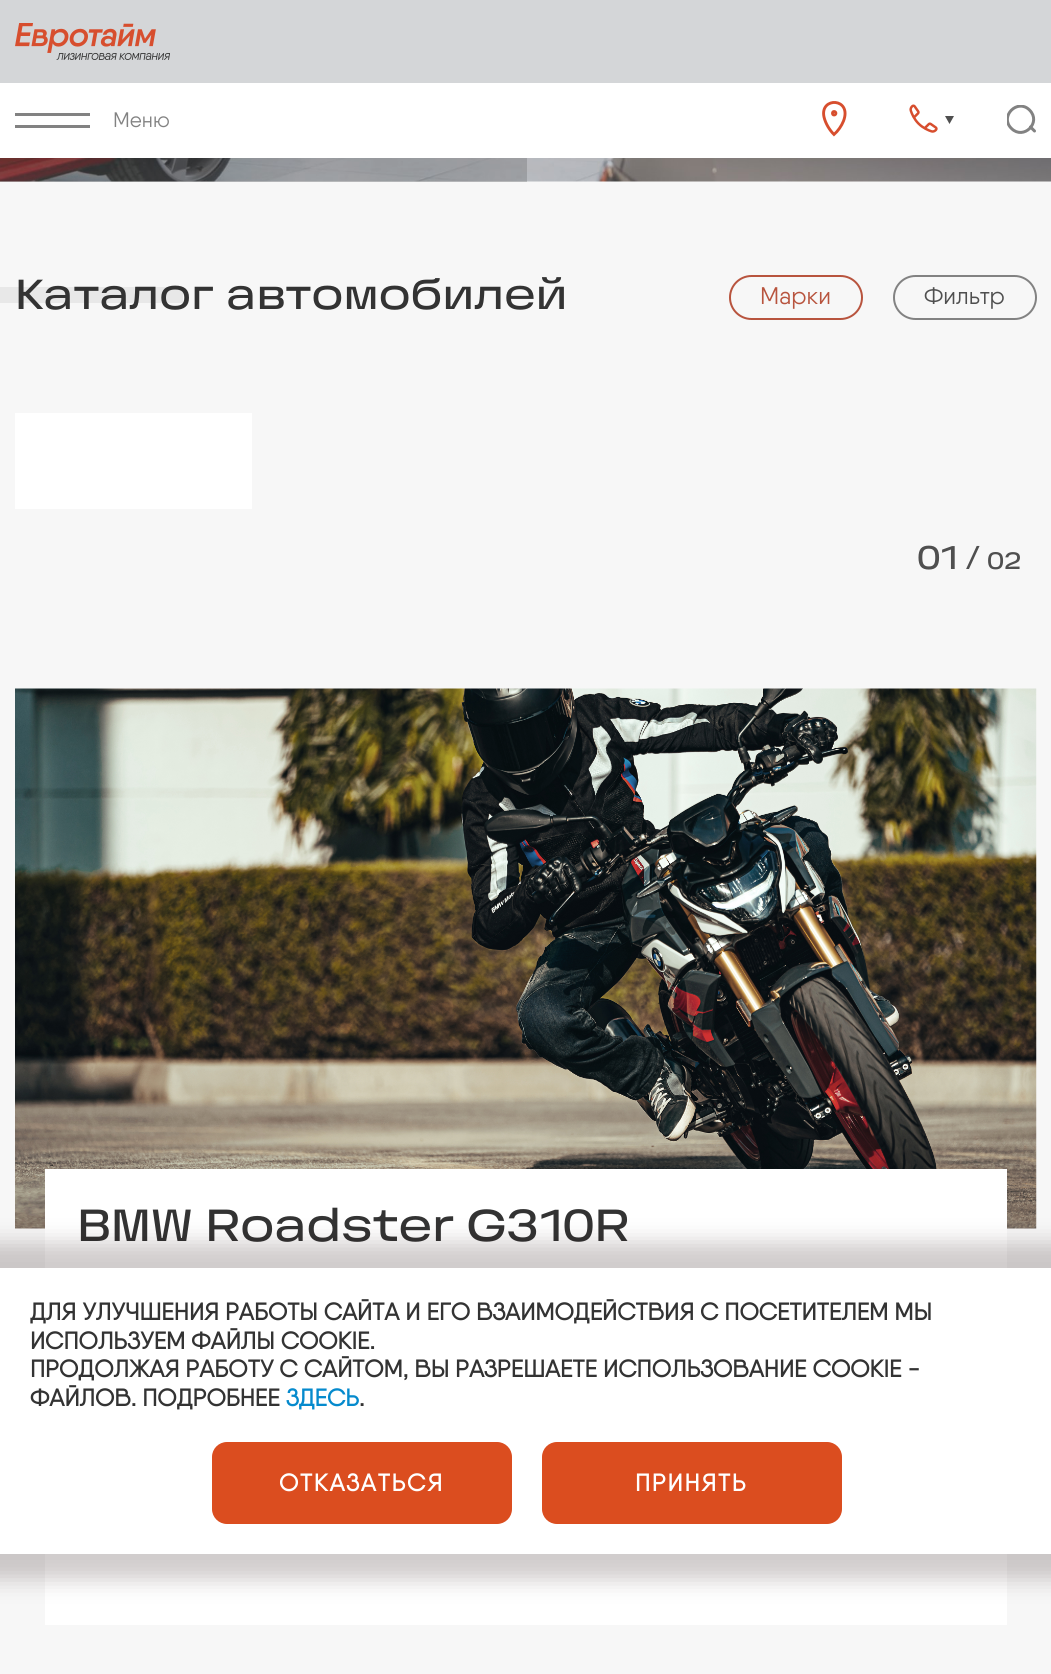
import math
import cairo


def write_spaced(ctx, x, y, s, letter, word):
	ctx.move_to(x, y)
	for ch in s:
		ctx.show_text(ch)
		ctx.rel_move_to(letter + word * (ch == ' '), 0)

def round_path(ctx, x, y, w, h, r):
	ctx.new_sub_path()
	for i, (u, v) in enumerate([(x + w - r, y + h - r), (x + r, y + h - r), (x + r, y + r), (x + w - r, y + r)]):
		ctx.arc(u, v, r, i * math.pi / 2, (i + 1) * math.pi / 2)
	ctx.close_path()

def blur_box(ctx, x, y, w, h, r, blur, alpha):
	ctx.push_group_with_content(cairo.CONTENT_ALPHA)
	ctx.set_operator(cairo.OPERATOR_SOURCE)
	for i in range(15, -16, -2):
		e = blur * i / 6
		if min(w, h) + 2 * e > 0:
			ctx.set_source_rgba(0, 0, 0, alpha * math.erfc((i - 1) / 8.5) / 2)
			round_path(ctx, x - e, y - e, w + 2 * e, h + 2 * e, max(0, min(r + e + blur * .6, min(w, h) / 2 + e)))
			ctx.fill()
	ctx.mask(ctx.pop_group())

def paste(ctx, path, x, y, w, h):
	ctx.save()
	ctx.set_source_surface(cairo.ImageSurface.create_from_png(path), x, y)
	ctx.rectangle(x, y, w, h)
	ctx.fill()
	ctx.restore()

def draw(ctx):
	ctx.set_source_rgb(0.965, 0.965, 0.965)
	ctx.paint()
	ctx.set_source_rgb(0.831, 0.839, 0.847)
	ctx.rectangle(0, 0, 1051, 83)
	ctx.fill()
	paste(ctx, 'media/1.png', 15, 23, 155, 37)
	ctx.set_source_rgb(1, 1, 1)
	ctx.rectangle(0, 83, 1051, 75)
	ctx.fill()
	ctx.new_path()
	ctx.move_to(834, 134.5)
	ctx.curve_to(838, 131, 841.5, 126, 843.5, 121)
	ctx.curve_to(852.5, 97.5, 819.5, 96.5, 824, 117)
	ctx.curve_to(825.5, 123.5, 829.5, 130, 834, 134.5)
	ctx.close_path()
	ctx.move_to(834, 115)
	ctx.curve_to(836.5, 115, 836.5, 111.5, 834, 111.5)
	ctx.curve_to(832, 111.5, 832, 115, 834, 115)
	ctx.close_path()
	ctx.set_source_rgb(0.843, 0.306, 0.18)
	ctx.set_line_width(2.9)
	ctx.stroke()
	paste(ctx, 'media/2.png', 909, 104, 29, 29)
	ctx.set_source_rgb(0.31, 0.31, 0.31)
	ctx.new_path()
	ctx.move_to(945, 116)
	ctx.line_to(954, 116)
	ctx.line_to(949.5, 124)
	ctx.close_path()
	ctx.fill()
	ctx.set_source_rgb(0.51, 0.51, 0.51)
	ctx.rectangle(15, 113, 75, 3)
	ctx.fill()
	ctx.rectangle(15, 125, 75, 3)
	ctx.fill()
	ctx.select_font_face('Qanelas')
	ctx.set_font_size(21)
	ctx.move_to(113, 127)
	ctx.show_text('Меню')
	ctx.save()
	ctx.rectangle(1007, 105, 30, 30)
	ctx.clip()
	ctx.new_path()
	ctx.move_to(1029.5, 110)
	ctx.curve_to(1042, 122.5, 1023.5, 140.5, 1011.5, 128.5)
	ctx.curve_to(999, 116.5, 1017.5, 98, 1029.5, 110)
	ctx.close_path()
	ctx.set_line_width(3)
	ctx.stroke()
	ctx.restore()
	ctx.new_path()
	ctx.move_to(1030.5, 127)
	ctx.line_to(1034.5, 131)
	ctx.set_line_width(3)
	ctx.set_line_cap(cairo.LINE_CAP_ROUND)
	ctx.stroke()
	paste(ctx, 'media/3.png', 0, 158, 1051, 24)
	ctx.set_source_rgba(0.196, 0.204, 0.208, 0.2)
	ctx.rectangle(0, 158, 527, 24)
	ctx.fill()
	ctx.set_source_rgb(0.91, 0.91, 0.91)
	ctx.rectangle(0, 287, 183, 16)
	ctx.fill()
	ctx.select_font_face('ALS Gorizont')
	ctx.set_font_size(42)
	ctx.set_source_rgb(0.2, 0.2, 0.2)
	ctx.move_to(15, 309)
	ctx.show_text('Каталог автомобилей')
	round_path(ctx, 730, 276, 132, 43, 21.5)
	ctx.set_source_rgb(0.722, 0.329, 0.243)
	ctx.set_line_width(2)
	ctx.set_line_cap(cairo.LINE_CAP_BUTT)
	ctx.stroke()
	ctx.select_font_face('Qanelas')
	ctx.set_font_size(24)
	ctx.move_to(760, 304)
	ctx.show_text('Марки')
	round_path(ctx, 894, 276, 142, 43, 21.5)
	ctx.set_source_rgb(0.51, 0.51, 0.51)
	ctx.stroke()
	ctx.set_source_rgb(0.31, 0.31, 0.31)
	ctx.move_to(924, 304)
	ctx.show_text('Фильтр')
	ctx.set_source_rgb(1, 1, 1)
	ctx.rectangle(15, 413, 237, 96)
	ctx.fill()
	ctx.select_font_face('ALS Gorizont')
	ctx.set_font_size(33)
	ctx.set_source_rgb(0.31, 0.31, 0.31)
	ctx.move_to(917, 569)
	ctx.show_text('01 /')
	ctx.set_font_size(24)
	ctx.move_to(987, 569)
	ctx.show_text('02')
	paste(ctx, 'media/4.png', 15, 688, 1022, 541)
	ctx.set_source_rgb(1, 1, 1)
	ctx.rectangle(45, 1169, 962, 456)
	ctx.fill()
	ctx.set_font_size(45)
	ctx.set_source_rgb(0.2, 0.2, 0.2)
	ctx.move_to(77, 1241)
	ctx.show_text('BMW Roadster G310R')
	ctx.set_source_rgb(0.086, 0.004, 0.004)
	blur_box(ctx, -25, 1242, 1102, 338, 0, 11, 0.2)
	ctx.set_source_rgb(1, 1, 1)
	ctx.rectangle(0, 1268, 1051, 286)
	ctx.fill()
	ctx.select_font_face('Qanelas', cairo.FONT_SLANT_NORMAL, cairo.FONT_WEIGHT_BOLD)
	ctx.set_font_size(24)
	ctx.set_source_rgb(0.2, 0.2, 0.2)
	for x, y, s in [
		(30, 1320, 'ДЛЯ УЛУЧШЕНИЯ РАБОТЫ САЙТА И ЕГО ВЗАИМОДЕЙСТВИЯ С ПОСЕТИТЕЛЕМ МЫ'),
		(30, 1349, 'ИСПОЛЬЗУЕМ ФАЙЛЫ COOKIE.'),
		(30, 1377, 'ПРОДОЛЖАЯ РАБОТУ С САЙТОМ, ВЫ РАЗРЕШАЕТЕ ИСПОЛЬЗОВАНИЕ COOKIE -'),
		(30, 1406, 'ФАЙЛОВ. ПОДРОБНЕЕ'),
	]:
		ctx.move_to(x, y)
		ctx.show_text(s)
	ctx.set_source_rgb(0.02, 0.541, 0.804)
	ctx.move_to(286, 1406)
	ctx.show_text('ЗДЕСЬ')
	ctx.set_source_rgb(0.2, 0.2, 0.2)
	ctx.move_to(359, 1406)
	ctx.show_text('.')
	ctx.set_source_rgb(0.859, 0.302, 0.122)
	round_path(ctx, 212, 1442, 300, 82, 15)
	ctx.fill()
	ctx.set_source_rgb(1, 1, 1)
	write_spaced(ctx, 279, 1491, 'ОТКАЗАТЬСЯ', 1.75, 0)
	ctx.set_source_rgb(0.859, 0.302, 0.122)
	round_path(ctx, 542, 1442, 300, 82, 15)
	ctx.fill()
	ctx.set_source_rgb(1, 1, 1)
	write_spaced(ctx, 635, 1491, 'ПРИНЯТЬ', 1.75, 0)


surface = cairo.ImageSurface(cairo.FORMAT_RGB24, 1051, 1674)
ctx = cairo.Context(surface)
options = cairo.FontOptions()
options.set_hint_metrics(cairo.HINT_METRICS_OFF)
options.set_hint_style(cairo.HINT_STYLE_NONE)
ctx.set_font_options(options)
ctx.set_miter_limit(4)
draw(ctx)
surface.write_to_png('image.png')
